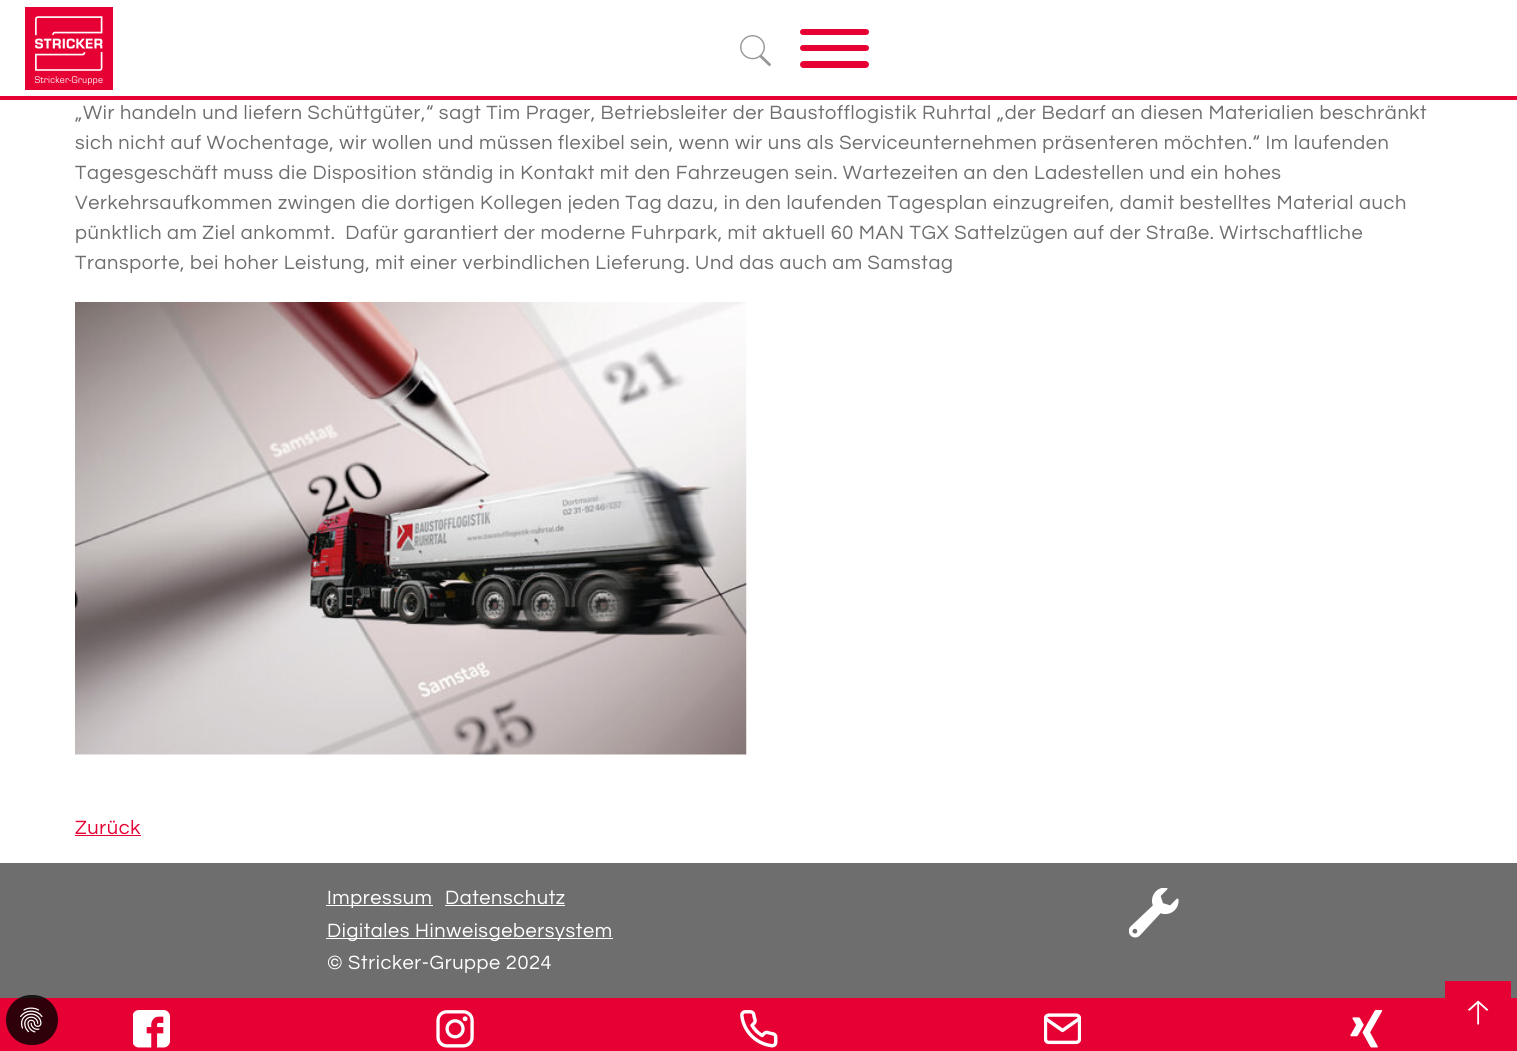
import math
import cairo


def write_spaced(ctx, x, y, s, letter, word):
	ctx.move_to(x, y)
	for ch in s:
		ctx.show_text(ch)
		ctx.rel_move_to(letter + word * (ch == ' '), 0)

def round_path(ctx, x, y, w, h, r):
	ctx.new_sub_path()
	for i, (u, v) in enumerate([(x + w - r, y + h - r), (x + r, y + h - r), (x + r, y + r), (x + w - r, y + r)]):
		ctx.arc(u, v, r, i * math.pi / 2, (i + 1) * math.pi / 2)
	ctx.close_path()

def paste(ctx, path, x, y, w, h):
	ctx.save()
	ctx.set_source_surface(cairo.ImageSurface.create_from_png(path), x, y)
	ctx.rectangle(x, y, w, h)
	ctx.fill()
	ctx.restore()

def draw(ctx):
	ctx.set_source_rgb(1, 1, 1)
	ctx.paint()
	ctx.set_source_rgb(0.902, 0, 0.2)
	ctx.rectangle(0, 96, 1517, 4)
	ctx.fill()
	paste(ctx, 'media/1.png', 25, 7, 88, 83)
	paste(ctx, 'media/2.png', 740, 35, 31, 31)
	round_path(ctx, 800, 29, 69, 6, 3)
	ctx.fill()
	round_path(ctx, 800, 45, 69, 6, 3)
	ctx.fill()
	round_path(ctx, 800, 61, 69, 7, 3.5)
	ctx.fill()
	ctx.select_font_face('Questrial')
	ctx.set_font_size(20)
	ctx.set_source_rgb(0.431, 0.431, 0.431)
	for x, y, s in [
		(75, 119, '„Wir handeln und liefern Schüttgüter,“ sagt Tim Prager, Betriebsleiter der Baustofflogistik Ruhrtal „der Bedarf an diesen Materialien beschränkt'),
		(75, 149, 'sich nicht auf Wochentage, wir wollen und müssen flexibel sein, wenn wir uns als Serviceunternehmen präsenteren möchten.“ Im laufenden'),
		(75, 179, 'Tagesgeschäft muss die Disposition ständig in Kontakt mit den Fahrzeugen sein. Wartezeiten an den Ladestellen und ein hohes'),
		(75, 209, 'Verkehrsaufkommen zwingen die dortigen Kollegen jeden Tag dazu, in den laufenden Tagesplan einzugreifen, damit bestelltes Material auch'),
		(75, 239, 'pünktlich am Ziel ankommt.  Dafür garantiert der moderne Fuhrpark, mit aktuell 60 MAN TGX Sattelzügen auf der Straße. Wirtschaftliche'),
		(75, 269, 'Transporte, bei hoher Leistung, mit einer verbindlichen Lieferung. Und das auch am Samstag'),
	]:
		write_spaced(ctx, x, y, s, 0.62, 0)
	paste(ctx, 'media/3.png', 75, 302, 672, 453)
	ctx.set_source_rgb(0.902, 0, 0.2)
	write_spaced(ctx, 75, 834, 'Zurück', 0.62, 0)
	ctx.rectangle(75, 835, 66, 1)
	ctx.fill()
	ctx.set_source_rgb(0.431, 0.431, 0.431)
	ctx.rectangle(0, 863, 1517, 135)
	ctx.fill()
	ctx.set_source_rgb(1, 1, 1)
	ctx.rectangle(326, 905, 107, 1)
	ctx.fill()
	write_spaced(ctx, 327, 904, 'Impressum', 0.62, 0)
	write_spaced(ctx, 445, 904, 'Datenschutz', 0.62, 0)
	ctx.rectangle(445, 905, 120, 1)
	ctx.fill()
	ctx.rectangle(326, 938, 287, 1)
	ctx.fill()
	write_spaced(ctx, 327, 937, 'Digitales Hinweisgebersystem', 0.62, 0)
	write_spaced(ctx, 327, 969, '© Stricker-Gruppe 2024', 0.62, 0)
	paste(ctx, 'media/4.png', 1129, 888, 50, 50)
	ctx.set_source_rgb(0.902, 0, 0.2)
	ctx.rectangle(0, 998, 1517, 53)
	ctx.fill()
	ctx.set_source_rgba(0, 0, 0, 0.8)
	round_path(ctx, 6, 995, 52, 50, 25)
	ctx.fill()
	paste(ctx, 'media/5.png', 20, 1007, 23, 26)
	ctx.set_source_rgb(0.902, 0, 0.2)
	ctx.rectangle(1445, 981, 66, 17)
	ctx.fill()
	paste(ctx, 'media/6.png', 1468, 1000, 21, 25)
	paste(ctx, 'media/7.png', 133, 1010, 37, 38)
	paste(ctx, 'media/8.png', 436, 1010, 38, 38)
	paste(ctx, 'media/9.png', 740, 1010, 38, 38)
	paste(ctx, 'media/10.png', 1044, 1013, 37, 32)
	paste(ctx, 'media/11.png', 1350, 1010, 33, 38)


surface = cairo.ImageSurface(cairo.FORMAT_RGB24, 1517, 1051)
ctx = cairo.Context(surface)
options = cairo.FontOptions()
options.set_hint_metrics(cairo.HINT_METRICS_OFF)
options.set_hint_style(cairo.HINT_STYLE_NONE)
ctx.set_font_options(options)
ctx.set_miter_limit(4)
draw(ctx)
surface.write_to_png('image.png')
